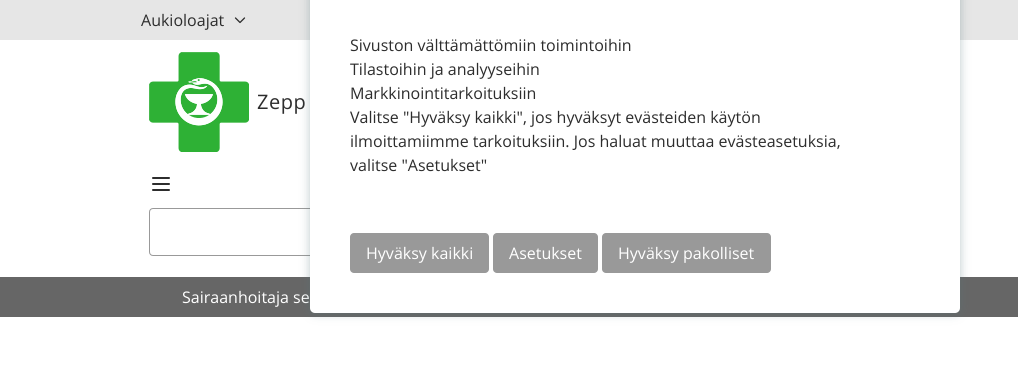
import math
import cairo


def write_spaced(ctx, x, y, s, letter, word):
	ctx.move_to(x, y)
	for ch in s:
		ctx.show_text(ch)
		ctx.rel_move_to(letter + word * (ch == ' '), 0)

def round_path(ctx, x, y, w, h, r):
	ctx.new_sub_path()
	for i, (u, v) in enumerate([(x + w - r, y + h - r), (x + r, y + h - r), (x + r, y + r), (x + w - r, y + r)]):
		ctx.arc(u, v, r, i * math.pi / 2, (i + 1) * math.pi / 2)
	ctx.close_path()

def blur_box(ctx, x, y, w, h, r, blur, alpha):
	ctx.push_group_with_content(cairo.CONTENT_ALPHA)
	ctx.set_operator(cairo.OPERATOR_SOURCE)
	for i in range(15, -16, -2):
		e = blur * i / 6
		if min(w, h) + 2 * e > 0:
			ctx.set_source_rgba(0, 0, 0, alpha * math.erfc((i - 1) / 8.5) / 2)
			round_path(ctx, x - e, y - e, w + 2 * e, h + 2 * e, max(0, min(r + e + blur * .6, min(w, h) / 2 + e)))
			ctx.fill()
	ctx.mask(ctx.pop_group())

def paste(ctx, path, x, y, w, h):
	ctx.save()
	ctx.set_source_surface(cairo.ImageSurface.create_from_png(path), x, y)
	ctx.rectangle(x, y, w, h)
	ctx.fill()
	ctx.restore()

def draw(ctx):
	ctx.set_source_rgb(1, 1, 1)
	ctx.paint()
	ctx.set_source_rgb(0.902, 0.902, 0.902)
	ctx.rectangle(0, 0, 1018, 40)
	ctx.fill()
	ctx.select_font_face('Open Sans')
	ctx.set_font_size(16)
	ctx.set_source_rgb(0.176, 0.176, 0.176)
	ctx.move_to(141, 26)
	ctx.show_text('Aukioloajat')
	ctx.new_path()
	ctx.move_to(244.5, 18)
	ctx.line_to(240, 22.5)
	ctx.line_to(235.5, 18)
	ctx.set_line_width(1.3)
	ctx.set_line_cap(cairo.LINE_CAP_ROUND)
	ctx.set_line_join(cairo.LINE_JOIN_ROUND)
	ctx.stroke()
	paste(ctx, 'media/1.png', 149, 52, 100, 100)
	ctx.set_font_size(20)
	write_spaced(ctx, 257, 109, 'Zepp', 0.5, 0)
	ctx.new_path()
	ctx.move_to(153, 178)
	ctx.line_to(169, 178)
	ctx.move_to(153, 184)
	ctx.line_to(169, 184)
	ctx.move_to(153, 190)
	ctx.line_to(169, 190)
	ctx.set_line_width(2)
	ctx.stroke()
	ctx.new_path()
	ctx.move_to(153, 208.5)
	ctx.line_to(812.5, 208.5)
	ctx.line_to(812.5, 255.5)
	ctx.line_to(153, 255.5)
	ctx.curve_to(151, 255.5, 149.5, 254, 149.5, 252)
	ctx.line_to(149.5, 212)
	ctx.curve_to(149.5, 210, 151, 208.5, 153, 208.5)
	ctx.close_path()
	ctx.set_source_rgb(0.6, 0.6, 0.6)
	ctx.set_line_width(1)
	ctx.set_line_cap(cairo.LINE_CAP_BUTT)
	ctx.set_line_join(cairo.LINE_JOIN_MITER)
	ctx.stroke()
	ctx.set_source_rgb(0.4, 0.4, 0.4)
	ctx.rectangle(0, 277, 1018, 40)
	ctx.fill()
	ctx.set_font_size(16)
	ctx.set_source_rgb(1, 1, 1)
	ctx.move_to(182, 303)
	ctx.show_text('Sairaanhoitaja se')
	ctx.set_source_rgb(0.329, 0.455, 0.471)
	blur_box(ctx, 310, -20, 650, 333, 5, 5, 0.4)
	ctx.set_source_rgb(1, 1, 1)
	round_path(ctx, 310, -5, 650, 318, 5)
	ctx.fill()
	ctx.set_source_rgb(0.176, 0.176, 0.176)
	for x, y, s in [
		(350, 51, 'Sivuston välttämättömiin toimintoihin'),
		(350, 75, 'Tilastoihin ja analyyseihin'),
		(350, 99, 'Markkinointitarkoituksiin'),
		(350, 123, 'Valitse "Hyväksy kaikki", jos hyväksyt evästeiden käytön'),
		(350, 147, 'ilmoittamiimme tarkoituksiin. Jos haluat muuttaa evästeasetuksia,'),
		(350, 171, 'valitse "Asetukset"'),
	]:
		ctx.move_to(x, y)
		ctx.show_text(s)
	ctx.set_source_rgb(0.6, 0.6, 0.6)
	round_path(ctx, 350, 233, 139, 40, 4)
	ctx.fill()
	ctx.set_source_rgb(1, 1, 1)
	ctx.move_to(366, 259)
	ctx.show_text('Hyväksy kaikki')
	ctx.set_source_rgb(0.6, 0.6, 0.6)
	round_path(ctx, 493, 233, 105, 40, 4)
	ctx.fill()
	ctx.set_source_rgb(1, 1, 1)
	ctx.move_to(509, 259)
	ctx.show_text('Asetukset')
	ctx.set_source_rgb(0.6, 0.6, 0.6)
	round_path(ctx, 602, 233, 169, 40, 4)
	ctx.fill()
	ctx.set_source_rgb(1, 1, 1)
	ctx.move_to(618, 259)
	ctx.show_text('Hyväksy pakolliset')


surface = cairo.ImageSurface(cairo.FORMAT_RGB24, 1018, 371)
ctx = cairo.Context(surface)
options = cairo.FontOptions()
options.set_hint_metrics(cairo.HINT_METRICS_OFF)
options.set_hint_style(cairo.HINT_STYLE_NONE)
ctx.set_font_options(options)
ctx.set_miter_limit(4)
draw(ctx)
surface.write_to_png('image.png')
